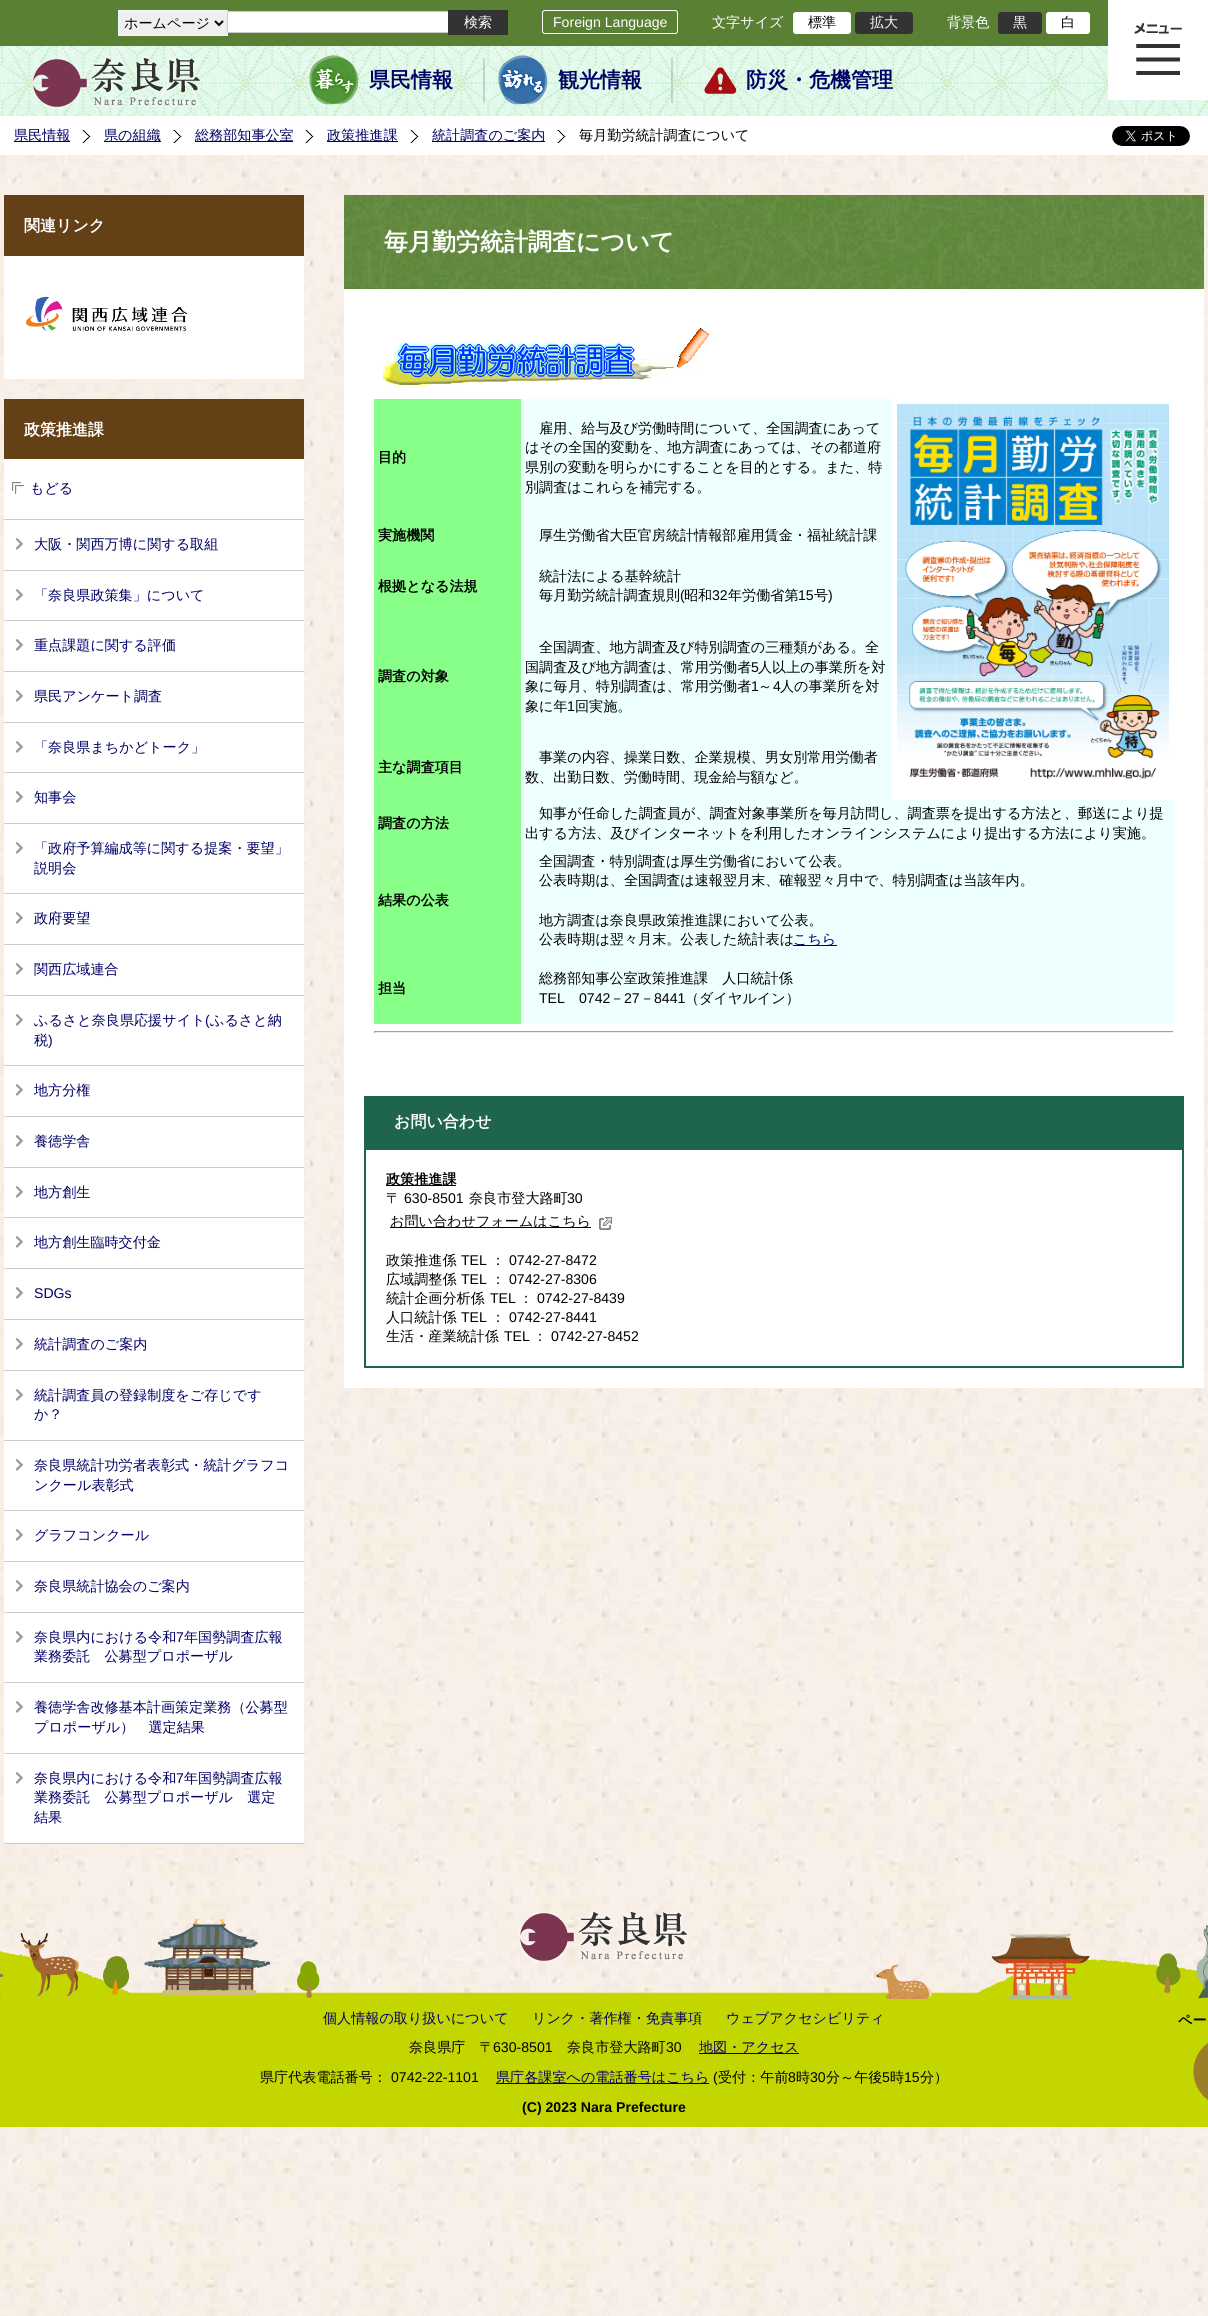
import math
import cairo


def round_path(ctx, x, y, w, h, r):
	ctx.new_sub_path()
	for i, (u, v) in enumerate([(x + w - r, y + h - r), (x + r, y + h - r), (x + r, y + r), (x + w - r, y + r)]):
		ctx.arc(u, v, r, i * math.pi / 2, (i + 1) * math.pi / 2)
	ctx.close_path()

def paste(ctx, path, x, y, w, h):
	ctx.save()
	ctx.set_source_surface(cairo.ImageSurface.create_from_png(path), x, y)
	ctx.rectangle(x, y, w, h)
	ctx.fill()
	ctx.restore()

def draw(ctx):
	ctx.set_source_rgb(1, 1, 1)
	ctx.paint()
	paste(ctx, 'media/1.png', 0, 155, 1208, 2161)
	ctx.set_source_rgb(0.353, 0.506, 0.2)
	ctx.rectangle(0, 0, 1108, 46)
	ctx.fill()
	ctx.set_source_rgb(0.937, 0.937, 0.937)
	ctx.rectangle(118.5, 10.5, 109, 25)
	ctx.fill_preserve()
	ctx.set_source_rgb(0.941, 0.973, 1)
	ctx.set_line_width(1)
	ctx.stroke()
	ctx.new_path()
	ctx.move_to(215, 21)
	ctx.line_to(219, 25)
	ctx.line_to(223, 21)
	ctx.set_source_rgb(0, 0, 0)
	ctx.set_line_width(2)
	ctx.stroke()
	ctx.select_font_face('WenQuanYi Zen Hei Medium')
	ctx.set_font_size(14.1)
	ctx.move_to(124, 28)
	ctx.show_text('ホームページ')
	ctx.set_source_rgb(1, 1, 1)
	ctx.rectangle(227.5, 11.5, 221, 21)
	ctx.fill_preserve()
	ctx.set_source_rgb(0.8, 0.8, 0.8)
	ctx.set_line_width(1)
	ctx.stroke()
	ctx.set_source_rgb(0.2, 0.2, 0.2)
	ctx.rectangle(448, 10, 60, 25)
	ctx.fill()
	ctx.set_source_rgb(1, 1, 1)
	ctx.move_to(464, 27)
	ctx.show_text('検索')
	round_path(ctx, 542.5, 10.5, 135, 23, 2.5)
	ctx.stroke()
	ctx.select_font_face('Liberation Sans')
	ctx.move_to(553, 27)
	ctx.show_text('Foreign Language')
	ctx.select_font_face('WenQuanYi Zen Hei Medium')
	ctx.move_to(712, 27)
	ctx.show_text('文字サイズ')
	round_path(ctx, 793, 12, 58, 22, 3)
	ctx.fill()
	ctx.set_source_rgb(0, 0, 0)
	ctx.move_to(808, 27)
	ctx.show_text('標準')
	ctx.set_source_rgb(0.2, 0.2, 0.2)
	round_path(ctx, 855, 12, 58, 22, 3)
	ctx.fill()
	ctx.set_source_rgb(1, 1, 1)
	ctx.move_to(870, 27)
	ctx.show_text('拡大')
	ctx.move_to(947, 27)
	ctx.show_text('背景色')
	ctx.set_source_rgb(0.2, 0.2, 0.2)
	round_path(ctx, 998, 12, 44, 22, 3)
	ctx.fill()
	ctx.set_source_rgb(1, 1, 1)
	ctx.move_to(1013, 27)
	ctx.show_text('黒')
	round_path(ctx, 1046, 12, 44, 22, 3)
	ctx.fill()
	ctx.set_source_rgb(0, 0, 0)
	ctx.move_to(1061, 27)
	ctx.show_text('白')
	paste(ctx, 'media/3.png', 0, 46, 1208, 70)
	paste(ctx, 'media/2.png', 31, 56, 171, 53)
	paste(ctx, 'media/4.png', 309, 55, 50, 50)
	ctx.select_font_face('WenQuanYi Zen Hei', cairo.FONT_SLANT_NORMAL, cairo.FONT_WEIGHT_BOLD)
	ctx.set_font_size(21)
	ctx.set_source_rgb(0, 0, 0.4)
	ctx.move_to(369, 87)
	ctx.show_text('県民情報')
	ctx.set_source_rgba(0.408, 0.408, 0.408, 0.25)
	ctx.rectangle(483, 58, 2, 45)
	ctx.fill()
	paste(ctx, 'media/5.png', 498, 55, 50, 50)
	ctx.set_source_rgb(0, 0, 0.4)
	ctx.move_to(558, 87)
	ctx.show_text('観光情報')
	ctx.set_source_rgba(0.408, 0.408, 0.408, 0.25)
	ctx.rectangle(671, 58, 2, 45)
	ctx.fill()
	paste(ctx, 'media/6.png', 704, 67, 33, 27)
	ctx.set_source_rgb(0, 0, 0.4)
	ctx.move_to(746, 87)
	ctx.show_text('防災・危機管理')
	paste(ctx, 'media/7.png', 1108, 0, 100, 100)
	ctx.rectangle(14, 141, 56, 1)
	ctx.fill()
	ctx.select_font_face('WenQuanYi Zen Hei Medium')
	ctx.set_font_size(14.1)
	ctx.move_to(14, 140)
	ctx.show_text('県民情報')
	paste(ctx, 'media/8.png', 82, 130, 9, 13)
	ctx.rectangle(104, 141, 57, 1)
	ctx.fill()
	ctx.move_to(104, 140)
	ctx.show_text('県の組織')
	paste(ctx, 'media/8.png', 173, 130, 9, 13)
	ctx.rectangle(195, 141, 98, 1)
	ctx.fill()
	ctx.move_to(195, 140)
	ctx.show_text('総務部知事公室')
	paste(ctx, 'media/8.png', 305, 130, 9, 13)
	ctx.rectangle(327, 141, 71, 1)
	ctx.fill()
	ctx.move_to(327, 140)
	ctx.show_text('政策推進課')
	paste(ctx, 'media/8.png', 410, 130, 9, 13)
	ctx.rectangle(432, 141, 113, 1)
	ctx.fill()
	ctx.move_to(432, 140)
	ctx.show_text('統計調査のご案内')
	paste(ctx, 'media/8.png', 557, 130, 9, 13)
	ctx.set_source_rgb(0, 0, 0)
	ctx.move_to(579, 140)
	ctx.show_text('毎月勤労統計調査について')
	paste(ctx, 'media/9.png', 1112, 126, 78, 20)
	ctx.set_source_rgb(1, 1, 1)
	ctx.rectangle(4, 256, 300, 123)
	ctx.fill()
	ctx.set_source_rgb(0.388, 0.251, 0.086)
	ctx.rectangle(4, 195, 300, 61)
	ctx.fill()
	ctx.select_font_face('WenQuanYi Zen Hei', cairo.FONT_SLANT_NORMAL, cairo.FONT_WEIGHT_BOLD)
	ctx.set_font_size(16)
	ctx.set_source_rgb(1, 1, 1)
	ctx.move_to(24, 231)
	ctx.show_text('関連リンク')
	paste(ctx, 'media/10.png', 26, 296, 162, 35)
	ctx.rectangle(4, 459, 300, 1384)
	ctx.fill()
	ctx.set_source_rgb(0.388, 0.251, 0.086)
	ctx.rectangle(4, 399, 300, 60)
	ctx.fill()
	ctx.set_source_rgb(1, 1, 1)
	ctx.move_to(24, 435)
	ctx.show_text('政策推進課')
	ctx.set_source_rgb(0.8, 0.8, 0.8)
	ctx.rectangle(4, 519, 300, 1)
	ctx.fill()
	paste(ctx, 'media/11.png', 12, 482, 12, 12)
	ctx.select_font_face('WenQuanYi Zen Hei Medium')
	ctx.set_font_size(14.1)
	ctx.set_source_rgb(0, 0, 0.4)
	ctx.move_to(30, 493)
	ctx.show_text('もどる')
	ctx.set_source_rgb(0.8, 0.8, 0.8)
	ctx.rectangle(4, 570, 300, 1)
	ctx.fill()
	paste(ctx, 'media/12.png', 16, 538, 7, 12)
	ctx.set_source_rgb(0, 0, 0.4)
	ctx.move_to(34, 549)
	ctx.show_text('大阪・関西万博に関する取組')
	ctx.set_source_rgb(0.8, 0.8, 0.8)
	ctx.rectangle(4, 620, 300, 1)
	ctx.fill()
	paste(ctx, 'media/12.png', 16, 589, 7, 12)
	ctx.set_source_rgb(0, 0, 0.4)
	ctx.move_to(34, 600)
	ctx.show_text('「奈良県政策集」について')
	ctx.set_source_rgb(0.8, 0.8, 0.8)
	ctx.rectangle(4, 671, 300, 1)
	ctx.fill()
	paste(ctx, 'media/12.png', 16, 639, 7, 12)
	ctx.set_source_rgb(0, 0, 0.4)
	ctx.move_to(34, 650)
	ctx.show_text('重点課題に関する評価')
	ctx.set_source_rgb(0.8, 0.8, 0.8)
	ctx.rectangle(4, 722, 300, 1)
	ctx.fill()
	paste(ctx, 'media/12.png', 16, 690, 7, 12)
	ctx.set_source_rgb(0, 0, 0.4)
	ctx.move_to(34, 701)
	ctx.show_text('県民アンケート調査')
	ctx.set_source_rgb(0.8, 0.8, 0.8)
	ctx.rectangle(4, 772, 300, 1)
	ctx.fill()
	paste(ctx, 'media/12.png', 16, 741, 7, 12)
	ctx.set_source_rgb(0, 0, 0.4)
	ctx.move_to(34, 752)
	ctx.show_text('「奈良県まちかどトーク」')
	ctx.set_source_rgb(0.8, 0.8, 0.8)
	ctx.rectangle(4, 823, 300, 1)
	ctx.fill()
	paste(ctx, 'media/12.png', 16, 791, 7, 12)
	ctx.set_source_rgb(0, 0, 0.4)
	ctx.move_to(34, 802)
	ctx.show_text('知事会')
	ctx.set_source_rgb(0.8, 0.8, 0.8)
	ctx.rectangle(4, 893, 300, 1)
	ctx.fill()
	paste(ctx, 'media/12.png', 16, 842, 7, 12)
	ctx.set_source_rgb(0, 0, 0.4)
	ctx.move_to(34, 853)
	ctx.show_text('「政府予算編成等に関する提案・要望」')
	ctx.move_to(34, 873)
	ctx.show_text('説明会')
	ctx.set_source_rgb(0.8, 0.8, 0.8)
	ctx.rectangle(4, 944, 300, 1)
	ctx.fill()
	paste(ctx, 'media/12.png', 16, 912, 7, 12)
	ctx.set_source_rgb(0, 0, 0.4)
	ctx.move_to(34, 923)
	ctx.show_text('政府要望')
	ctx.set_source_rgb(0.8, 0.8, 0.8)
	ctx.rectangle(4, 995, 300, 1)
	ctx.fill()
	paste(ctx, 'media/12.png', 16, 963, 7, 12)
	ctx.set_source_rgb(0, 0, 0.4)
	ctx.move_to(34, 974)
	ctx.show_text('関西広域連合')
	ctx.set_source_rgb(0.8, 0.8, 0.8)
	ctx.rectangle(4, 1065, 300, 1)
	ctx.fill()
	paste(ctx, 'media/12.png', 16, 1014, 7, 12)
	ctx.set_source_rgb(0, 0, 0.4)
	ctx.move_to(34, 1025)
	ctx.show_text('ふるさと奈良県応援サイト')
	ctx.select_font_face('Liberation Sans')
	ctx.move_to(205, 1025)
	ctx.show_text('(')
	ctx.select_font_face('WenQuanYi Zen Hei Medium')
	ctx.move_to(210, 1025)
	ctx.show_text('ふるさと納')
	ctx.move_to(34, 1045)
	ctx.show_text('税')
	ctx.select_font_face('Liberation Sans')
	ctx.move_to(48, 1045)
	ctx.show_text(')')
	ctx.set_source_rgb(0.8, 0.8, 0.8)
	ctx.rectangle(4, 1116, 300, 1)
	ctx.fill()
	paste(ctx, 'media/12.png', 16, 1084, 7, 12)
	ctx.select_font_face('WenQuanYi Zen Hei Medium')
	ctx.set_source_rgb(0, 0, 0.4)
	ctx.move_to(34, 1095)
	ctx.show_text('地方分権')
	ctx.set_source_rgb(0.8, 0.8, 0.8)
	ctx.rectangle(4, 1167, 300, 1)
	ctx.fill()
	paste(ctx, 'media/12.png', 16, 1135, 7, 12)
	ctx.set_source_rgb(0, 0, 0.4)
	ctx.move_to(34, 1146)
	ctx.show_text('養徳学舎')
	ctx.set_source_rgb(0.8, 0.8, 0.8)
	ctx.rectangle(4, 1217, 300, 1)
	ctx.fill()
	paste(ctx, 'media/12.png', 16, 1186, 7, 12)
	ctx.set_source_rgb(0, 0, 0.4)
	ctx.move_to(34, 1197)
	ctx.show_text('地方創生')
	ctx.set_source_rgb(0.8, 0.8, 0.8)
	ctx.rectangle(4, 1268, 300, 1)
	ctx.fill()
	paste(ctx, 'media/12.png', 16, 1236, 7, 12)
	ctx.set_source_rgb(0, 0, 0.4)
	ctx.move_to(34, 1247)
	ctx.show_text('地方創生臨時交付金')
	ctx.set_source_rgb(0.8, 0.8, 0.8)
	ctx.rectangle(4, 1319, 300, 1)
	ctx.fill()
	paste(ctx, 'media/12.png', 16, 1287, 7, 12)
	ctx.select_font_face('Liberation Sans')
	ctx.set_source_rgb(0, 0, 0.4)
	ctx.move_to(34, 1298)
	ctx.show_text('SDGs')
	ctx.set_source_rgb(0.8, 0.8, 0.8)
	ctx.rectangle(4, 1370, 300, 1)
	ctx.fill()
	paste(ctx, 'media/12.png', 16, 1338, 7, 12)
	ctx.select_font_face('WenQuanYi Zen Hei Medium')
	ctx.set_source_rgb(0, 0, 0.4)
	ctx.move_to(34, 1349)
	ctx.show_text('統計調査のご案内')
	ctx.set_source_rgb(0.8, 0.8, 0.8)
	ctx.rectangle(4, 1440, 300, 1)
	ctx.fill()
	paste(ctx, 'media/12.png', 16, 1389, 7, 12)
	ctx.set_source_rgb(0, 0, 0.4)
	ctx.move_to(34, 1400)
	ctx.show_text('統計調査員の登録制度をご存じです')
	ctx.move_to(34, 1419)
	ctx.show_text('か？')
	ctx.set_source_rgb(0.8, 0.8, 0.8)
	ctx.rectangle(4, 1510, 300, 1)
	ctx.fill()
	paste(ctx, 'media/12.png', 16, 1459, 7, 12)
	ctx.set_source_rgb(0, 0, 0.4)
	ctx.move_to(34, 1470)
	ctx.show_text('奈良県統計功労者表彰式・統計グラフコ')
	ctx.move_to(34, 1490)
	ctx.show_text('ンクール表彰式')
	ctx.set_source_rgb(0.8, 0.8, 0.8)
	ctx.rectangle(4, 1561, 300, 1)
	ctx.fill()
	paste(ctx, 'media/12.png', 16, 1529, 7, 12)
	ctx.set_source_rgb(0, 0, 0.4)
	ctx.move_to(34, 1540)
	ctx.show_text('グラフコンクール')
	ctx.set_source_rgb(0.8, 0.8, 0.8)
	ctx.rectangle(4, 1612, 300, 1)
	ctx.fill()
	paste(ctx, 'media/12.png', 16, 1580, 7, 12)
	ctx.set_source_rgb(0, 0, 0.4)
	ctx.move_to(34, 1591)
	ctx.show_text('奈良県統計協会のご案内')
	ctx.set_source_rgb(0.8, 0.8, 0.8)
	ctx.rectangle(4, 1682, 300, 1)
	ctx.fill()
	paste(ctx, 'media/12.png', 16, 1631, 7, 12)
	ctx.set_source_rgb(0, 0, 0.4)
	ctx.move_to(34, 1642)
	ctx.show_text('奈良県内における令和')
	ctx.select_font_face('Liberation Sans')
	ctx.move_to(176, 1642)
	ctx.show_text('7')
	ctx.select_font_face('WenQuanYi Zen Hei Medium')
	ctx.move_to(184, 1642)
	ctx.show_text('年国勢調査広報')
	ctx.move_to(34, 1661)
	ctx.show_text('業務委託　公募型プロポーザル')
	ctx.set_source_rgb(0.8, 0.8, 0.8)
	ctx.rectangle(4, 1753, 300, 1)
	ctx.fill()
	paste(ctx, 'media/12.png', 16, 1701, 7, 12)
	ctx.set_source_rgb(0, 0, 0.4)
	ctx.move_to(34, 1712)
	ctx.show_text('養徳学舎改修基本計画策定業務（公募型')
	ctx.move_to(34, 1732)
	ctx.show_text('プロポーザル）　選定結果')
	ctx.set_source_rgb(0.8, 0.8, 0.8)
	ctx.rectangle(4, 1843, 300, 1)
	ctx.fill()
	paste(ctx, 'media/12.png', 16, 1772, 7, 12)
	ctx.set_source_rgb(0, 0, 0.4)
	ctx.move_to(34, 1783)
	ctx.show_text('奈良県内における令和')
	ctx.select_font_face('Liberation Sans')
	ctx.move_to(176, 1783)
	ctx.show_text('7')
	ctx.select_font_face('WenQuanYi Zen Hei Medium')
	for x, y, s in [
		(184, 1783, '年国勢調査広報'),
		(34, 1802, '業務委託　公募型プロポーザル　選定'),
		(34, 1822, '結果'),
	]:
		ctx.move_to(x, y)
		ctx.show_text(s)
	ctx.set_source_rgb(1, 1, 1)
	ctx.rectangle(344, 289, 860, 1099)
	ctx.fill()
	paste(ctx, 'media/13.png', 344, 195, 860, 94)
	ctx.select_font_face('WenQuanYi Zen Hei', cairo.FONT_SLANT_NORMAL, cairo.FONT_WEIGHT_BOLD)
	ctx.set_font_size(24)
	ctx.move_to(384, 250)
	ctx.show_text('毎月勤労統計調査について')
	paste(ctx, 'media/14.png', 383, 328, 326, 57)
	ctx.set_source_rgb(0.533, 1, 0.533)
	ctx.rectangle(374, 399, 147, 625)
	ctx.fill()
	ctx.set_font_size(14.1)
	ctx.set_source_rgb(0, 0, 0)
	ctx.move_to(378, 462)
	ctx.show_text('目的')
	ctx.set_source_rgb(0.933, 1, 1)
	ctx.rectangle(521, 399, 371, 401)
	ctx.fill()
	ctx.select_font_face('WenQuanYi Zen Hei Medium')
	ctx.set_source_rgb(0, 0, 0)
	for x, y, s in [
		(539, 433, '雇用、給与及び労働時間について、全国調査にあって'),
		(525, 452, 'はその全国的変動を、地方調査にあっては、その都道府'),
		(525, 472, '県別の変動を明らかにすることを目的とする。また、特'),
		(525, 492, '別調査はこれらを補完する。'),
	]:
		ctx.move_to(x, y)
		ctx.show_text(s)
	paste(ctx, 'media/15.png', 897, 404, 272, 375)
	ctx.select_font_face('WenQuanYi Zen Hei', cairo.FONT_SLANT_NORMAL, cairo.FONT_WEIGHT_BOLD)
	ctx.move_to(378, 540)
	ctx.show_text('実施機関')
	ctx.select_font_face('WenQuanYi Zen Hei Medium')
	ctx.move_to(539, 540)
	ctx.show_text('厚生労働省大臣官房統計情報部雇用賃金・福祉統計課')
	ctx.select_font_face('WenQuanYi Zen Hei', cairo.FONT_SLANT_NORMAL, cairo.FONT_WEIGHT_BOLD)
	ctx.move_to(378, 591)
	ctx.show_text('根拠となる法規')
	ctx.select_font_face('WenQuanYi Zen Hei Medium')
	ctx.move_to(539, 581)
	ctx.show_text('統計法による基幹統計')
	ctx.move_to(539, 600)
	ctx.show_text('毎月勤労統計調査規則')
	ctx.select_font_face('Liberation Sans')
	ctx.move_to(680, 600)
	ctx.show_text('(')
	ctx.select_font_face('WenQuanYi Zen Hei Medium')
	ctx.move_to(684, 600)
	ctx.show_text('昭和')
	ctx.select_font_face('Liberation Sans')
	ctx.move_to(712, 600)
	ctx.show_text('32')
	ctx.select_font_face('WenQuanYi Zen Hei Medium')
	ctx.move_to(728, 600)
	ctx.show_text('年労働省第')
	ctx.select_font_face('Liberation Sans')
	ctx.move_to(798, 600)
	ctx.show_text('15')
	ctx.select_font_face('WenQuanYi Zen Hei Medium')
	ctx.move_to(814, 600)
	ctx.show_text('号')
	ctx.select_font_face('Liberation Sans')
	ctx.move_to(828, 600)
	ctx.show_text(')')
	ctx.select_font_face('WenQuanYi Zen Hei', cairo.FONT_SLANT_NORMAL, cairo.FONT_WEIGHT_BOLD)
	ctx.move_to(378, 681)
	ctx.show_text('調査の対象')
	ctx.select_font_face('WenQuanYi Zen Hei Medium')
	ctx.move_to(539, 652)
	ctx.show_text('全国調査、地方調査及び特別調査の三種類がある。全')
	ctx.move_to(525, 672)
	ctx.show_text('国調査及び地方調査は、常用労働者')
	ctx.select_font_face('Liberation Sans')
	ctx.move_to(751, 672)
	ctx.show_text('5')
	ctx.select_font_face('WenQuanYi Zen Hei Medium')
	ctx.move_to(758, 672)
	ctx.show_text('人以上の事業所を対')
	ctx.move_to(525, 691)
	ctx.show_text('象に毎月、特別調査は、常用労働者')
	ctx.select_font_face('Liberation Sans')
	ctx.move_to(751, 691)
	ctx.show_text('1')
	ctx.select_font_face('WenQuanYi Zen Hei Medium')
	ctx.move_to(758, 691)
	ctx.show_text('～')
	ctx.select_font_face('Liberation Sans')
	ctx.move_to(773, 691)
	ctx.show_text('4')
	ctx.select_font_face('WenQuanYi Zen Hei Medium')
	ctx.move_to(780, 691)
	ctx.show_text('人の事業所を対')
	ctx.move_to(525, 711)
	ctx.show_text('象に年')
	ctx.select_font_face('Liberation Sans')
	ctx.move_to(567, 711)
	ctx.show_text('1')
	ctx.select_font_face('WenQuanYi Zen Hei Medium')
	ctx.move_to(575, 711)
	ctx.show_text('回実施。')
	ctx.select_font_face('WenQuanYi Zen Hei', cairo.FONT_SLANT_NORMAL, cairo.FONT_WEIGHT_BOLD)
	ctx.move_to(378, 772)
	ctx.show_text('主な調査項目')
	ctx.select_font_face('WenQuanYi Zen Hei Medium')
	ctx.move_to(539, 762)
	ctx.show_text('事業の内容、操業日数、企業規模、男女別常用労働者')
	ctx.move_to(525, 782)
	ctx.show_text('数、出勤日数、労働時間、現金給与額など。')
	ctx.select_font_face('WenQuanYi Zen Hei', cairo.FONT_SLANT_NORMAL, cairo.FONT_WEIGHT_BOLD)
	ctx.move_to(378, 828)
	ctx.show_text('調査の方法')
	ctx.set_source_rgb(0.933, 1, 1)
	ctx.rectangle(521, 800, 653, 224)
	ctx.fill()
	ctx.select_font_face('WenQuanYi Zen Hei Medium')
	ctx.set_source_rgb(0, 0, 0)
	ctx.move_to(539, 818)
	ctx.show_text('知事が任命した調査員が、調査対象事業所を毎月訪問し、調査票を提出する方法と、郵送により提')
	ctx.move_to(525, 838)
	ctx.show_text('出する方法、及びインターネットを利用したオンラインシステムにより提出する方法により実施。')
	ctx.select_font_face('WenQuanYi Zen Hei', cairo.FONT_SLANT_NORMAL, cairo.FONT_WEIGHT_BOLD)
	ctx.move_to(378, 905)
	ctx.show_text('結果の公表')
	ctx.select_font_face('WenQuanYi Zen Hei Medium')
	for x, y, s in [
		(539, 866, '全国調査・特別調査は厚生労働省において公表。'),
		(539, 885, '公表時期は、全国調査は速報翌月末、確報翌々月中で、特別調査は当該年内。'),
		(539, 925, '地方調査は奈良県政策推進課において公表。'),
		(539, 944, '公表時期は翌々月末。公表した統計表は'),
	]:
		ctx.move_to(x, y)
		ctx.show_text(s)
	ctx.set_source_rgb(0, 0, 0.4)
	ctx.rectangle(793, 945, 44, 1)
	ctx.fill()
	ctx.move_to(793, 944)
	ctx.show_text('こちら')
	ctx.select_font_face('WenQuanYi Zen Hei', cairo.FONT_SLANT_NORMAL, cairo.FONT_WEIGHT_BOLD)
	ctx.set_source_rgb(0, 0, 0)
	ctx.move_to(378, 993)
	ctx.show_text('担当')
	ctx.select_font_face('WenQuanYi Zen Hei Medium')
	ctx.move_to(539, 983)
	ctx.show_text('総務部知事公室政策推進課　人口統計係')
	ctx.select_font_face('Liberation Sans')
	ctx.move_to(539, 1003)
	ctx.show_text('TEL')
	ctx.move_to(579, 1003)
	ctx.show_text('0742')
	ctx.select_font_face('WenQuanYi Zen Hei Medium')
	ctx.move_to(610, 1003)
	ctx.show_text('－')
	ctx.select_font_face('Liberation Sans')
	ctx.move_to(624, 1003)
	ctx.show_text('27')
	ctx.select_font_face('WenQuanYi Zen Hei Medium')
	ctx.move_to(640, 1003)
	ctx.show_text('－')
	ctx.select_font_face('Liberation Sans')
	ctx.move_to(654, 1003)
	ctx.show_text('8441')
	ctx.select_font_face('WenQuanYi Zen Hei Medium')
	ctx.move_to(685, 1003)
	ctx.show_text('（ダイヤルイン）')
	ctx.set_source_rgb(0.624, 0.624, 0.624)
	ctx.rectangle(374, 1031, 800, 1)
	ctx.fill()
	ctx.set_source_rgb(0.933, 0.933, 0.933)
	ctx.rectangle(1173, 1031, 1, 2)
	ctx.rectangle(374, 1032, 800, 1)
	ctx.fill()
	ctx.set_source_rgb(0.624, 0.624, 0.624)
	ctx.rectangle(374, 1031, 1, 2)
	ctx.fill()
	ctx.set_source_rgb(0.122, 0.396, 0.294)
	ctx.rectangle(364, 1096, 820, 52)
	ctx.fill()
	ctx.select_font_face('WenQuanYi Zen Hei', cairo.FONT_SLANT_NORMAL, cairo.FONT_WEIGHT_BOLD)
	ctx.set_font_size(16)
	ctx.set_source_rgb(1, 1, 1)
	ctx.move_to(394, 1127)
	ctx.show_text('お問い合わせ')
	ctx.rectangle(365, 1149, 818, 218)
	ctx.set_source_rgb(0.122, 0.396, 0.294)
	ctx.set_line_width(2)
	ctx.stroke()
	ctx.set_source_rgb(0, 0, 0)
	ctx.rectangle(386, 1185, 70, 1)
	ctx.fill()
	ctx.set_font_size(14.1)
	ctx.move_to(386, 1184)
	ctx.show_text('政策推進課')
	ctx.select_font_face('WenQuanYi Zen Hei Medium')
	ctx.move_to(386, 1203)
	ctx.show_text('〒')
	ctx.select_font_face('Liberation Sans')
	ctx.move_to(404, 1203)
	ctx.show_text('630-8501')
	ctx.select_font_face('WenQuanYi Zen Hei Medium')
	ctx.move_to(469, 1203)
	ctx.show_text('奈良市登大路町')
	ctx.select_font_face('Liberation Sans')
	ctx.move_to(567, 1203)
	ctx.show_text('30')
	ctx.rectangle(390, 1227, 201, 1)
	ctx.fill()
	ctx.select_font_face('WenQuanYi Zen Hei Medium')
	ctx.move_to(390, 1226)
	ctx.show_text('お問い合わせフォームはこちら')
	paste(ctx, 'media/16.png', 599, 1217, 13, 13)
	ctx.move_to(386, 1265)
	ctx.show_text('政策推進係')
	ctx.select_font_face('Liberation Sans')
	ctx.move_to(461, 1265)
	ctx.show_text('TEL')
	ctx.select_font_face('WenQuanYi Zen Hei Medium')
	ctx.move_to(491, 1265)
	ctx.show_text('：')
	ctx.select_font_face('Liberation Sans')
	ctx.move_to(509, 1265)
	ctx.show_text('0742-27-8472')
	ctx.select_font_face('WenQuanYi Zen Hei Medium')
	ctx.move_to(386, 1284)
	ctx.show_text('広域調整係')
	ctx.select_font_face('Liberation Sans')
	ctx.move_to(461, 1284)
	ctx.show_text('TEL')
	ctx.select_font_face('WenQuanYi Zen Hei Medium')
	ctx.move_to(491, 1284)
	ctx.show_text('：')
	ctx.select_font_face('Liberation Sans')
	ctx.move_to(509, 1284)
	ctx.show_text('0742-27-8306')
	ctx.select_font_face('WenQuanYi Zen Hei Medium')
	ctx.move_to(386, 1303)
	ctx.show_text('統計企画分析係')
	ctx.select_font_face('Liberation Sans')
	ctx.move_to(490, 1303)
	ctx.show_text('TEL')
	ctx.select_font_face('WenQuanYi Zen Hei Medium')
	ctx.move_to(519, 1303)
	ctx.show_text('：')
	ctx.select_font_face('Liberation Sans')
	ctx.move_to(537, 1303)
	ctx.show_text('0742-27-8439')
	ctx.select_font_face('WenQuanYi Zen Hei Medium')
	ctx.move_to(386, 1322)
	ctx.show_text('人口統計係')
	ctx.select_font_face('Liberation Sans')
	ctx.move_to(461, 1322)
	ctx.show_text('TEL')
	ctx.select_font_face('WenQuanYi Zen Hei Medium')
	ctx.move_to(491, 1322)
	ctx.show_text('：')
	ctx.select_font_face('Liberation Sans')
	ctx.move_to(509, 1322)
	ctx.show_text('0742-27-8441')
	ctx.select_font_face('WenQuanYi Zen Hei Medium')
	ctx.move_to(386, 1341)
	ctx.show_text('生活・産業統計係')
	ctx.select_font_face('Liberation Sans')
	ctx.move_to(504, 1341)
	ctx.show_text('TEL')
	ctx.select_font_face('WenQuanYi Zen Hei Medium')
	ctx.move_to(533, 1341)
	ctx.show_text('：')
	ctx.select_font_face('Liberation Sans')
	ctx.move_to(551, 1341)
	ctx.show_text('0742-27-8452')
	paste(ctx, 'media/18.png', 0, 1918, 1208, 81)
	paste(ctx, 'media/17.png', 518, 1910, 171, 53)
	ctx.set_source_rgb(0.765, 0.839, 0)
	ctx.rectangle(0, 1999, 1208, 128)
	ctx.fill()
	ctx.select_font_face('WenQuanYi Zen Hei Medium')
	ctx.set_source_rgb(0, 0, 0.4)
	for x, y, s in [
		(323, 2023, '個人情報の取り扱いについて'),
		(532, 2023, 'リンク・著作権・免責事項'),
		(726, 2023, 'ウェブアクセシビリティ'),
	]:
		ctx.move_to(x, y)
		ctx.show_text(s)
	ctx.set_source_rgb(0, 0, 0)
	ctx.move_to(409, 2052)
	ctx.show_text('奈良県庁　〒')
	ctx.select_font_face('Liberation Sans')
	ctx.move_to(493, 2052)
	ctx.show_text('630-8501')
	ctx.select_font_face('WenQuanYi Zen Hei Medium')
	ctx.move_to(567, 2052)
	ctx.show_text('奈良市登大路町')
	ctx.select_font_face('Liberation Sans')
	ctx.move_to(666, 2052)
	ctx.show_text('30')
	ctx.set_source_rgb(0, 0, 0.4)
	ctx.rectangle(699, 2053, 100, 1)
	ctx.fill()
	ctx.select_font_face('WenQuanYi Zen Hei Medium')
	ctx.move_to(699, 2052)
	ctx.show_text('地図・アクセス')
	ctx.set_source_rgb(0, 0, 0)
	ctx.move_to(260, 2082)
	ctx.show_text('県庁代表電話番号：')
	ctx.select_font_face('Liberation Sans')
	ctx.move_to(391, 2082)
	ctx.show_text('0742-22-1101')
	ctx.set_source_rgb(0, 0, 0.4)
	ctx.rectangle(496, 2083, 213, 1)
	ctx.fill()
	ctx.select_font_face('WenQuanYi Zen Hei Medium')
	ctx.move_to(496, 2082)
	ctx.show_text('県庁各課室への電話番号はこちら')
	ctx.select_font_face('Liberation Sans')
	ctx.set_source_rgb(0, 0, 0)
	ctx.move_to(713, 2082)
	ctx.show_text('(')
	ctx.select_font_face('WenQuanYi Zen Hei Medium')
	ctx.move_to(718, 2082)
	ctx.show_text('受付：午前')
	ctx.select_font_face('Liberation Sans')
	ctx.move_to(788, 2082)
	ctx.show_text('8')
	ctx.select_font_face('WenQuanYi Zen Hei Medium')
	ctx.move_to(796, 2082)
	ctx.show_text('時')
	ctx.select_font_face('Liberation Sans')
	ctx.move_to(810, 2082)
	ctx.show_text('30')
	ctx.select_font_face('WenQuanYi Zen Hei Medium')
	ctx.move_to(826, 2082)
	ctx.show_text('分～午後')
	ctx.select_font_face('Liberation Sans')
	ctx.move_to(882, 2082)
	ctx.show_text('5')
	ctx.select_font_face('WenQuanYi Zen Hei Medium')
	ctx.move_to(890, 2082)
	ctx.show_text('時')
	ctx.select_font_face('Liberation Sans')
	ctx.move_to(904, 2082)
	ctx.show_text('15')
	ctx.select_font_face('WenQuanYi Zen Hei Medium')
	ctx.move_to(920, 2082)
	ctx.show_text('分）')
	ctx.select_font_face('Liberation Sans', cairo.FONT_SLANT_NORMAL, cairo.FONT_WEIGHT_BOLD)
	ctx.move_to(522, 2112)
	ctx.show_text('(C) 2023 Nara Prefecture')
	paste(ctx, 'media/19.png', 1193, 2043, 15, 57)
	ctx.select_font_face('WenQuanYi Zen Hei', cairo.FONT_SLANT_NORMAL, cairo.FONT_WEIGHT_BOLD)
	ctx.move_to(1178, 2025)
	ctx.show_text('ペー')


surface = cairo.ImageSurface(cairo.FORMAT_RGB24, 1208, 2316)
ctx = cairo.Context(surface)
options = cairo.FontOptions()
options.set_hint_metrics(cairo.HINT_METRICS_OFF)
options.set_hint_style(cairo.HINT_STYLE_NONE)
ctx.set_font_options(options)
ctx.set_miter_limit(4)
draw(ctx)
surface.write_to_png('image.png')
